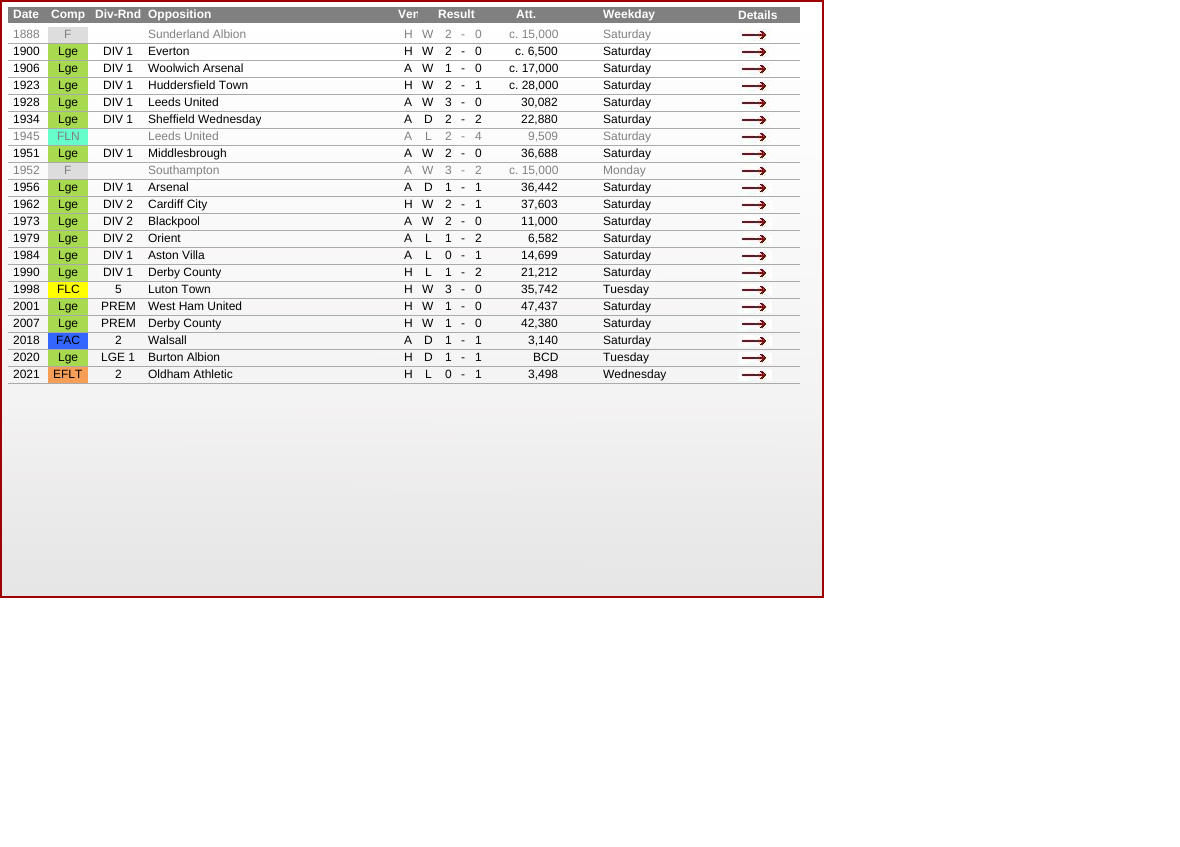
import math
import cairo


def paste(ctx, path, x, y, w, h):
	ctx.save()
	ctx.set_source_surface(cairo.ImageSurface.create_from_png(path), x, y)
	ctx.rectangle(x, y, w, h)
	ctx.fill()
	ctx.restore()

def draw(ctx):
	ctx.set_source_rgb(1, 1, 1)
	ctx.paint()
	ctx.set_source_rgb(0.624, 0.004, 0.012)
	ctx.rectangle(0, 0, 824, 598)
	ctx.fill()
	paste(ctx, 'media/1.png', 2, 2, 820, 594)
	ctx.set_source_rgb(0.502, 0.502, 0.502)
	ctx.rectangle(8, 7, 792, 16)
	ctx.fill()
	ctx.select_font_face('Liberation Sans', cairo.FONT_SLANT_NORMAL, cairo.FONT_WEIGHT_BOLD)
	ctx.set_font_size(12)
	ctx.set_source_rgb(1, 1, 1)
	for x, y, s in [
		(13, 18, 'Date'),
		(51, 18, 'Comp'),
		(95, 18, 'Div-Rnd'),
		(148, 18, 'Opposition'),
	]:
		ctx.move_to(x, y)
		ctx.show_text(s)
	ctx.save()
	ctx.rectangle(398, 7, 20, 16)
	ctx.clip()
	ctx.move_to(398, 18)
	ctx.show_text('Ven')
	ctx.restore()
	for x, y, s in [
		(438, 18, 'Result'),
		(516, 18, 'Att.'),
		(603, 18, 'Weekday'),
		(738, 19, 'Details'),
	]:
		ctx.move_to(x, y)
		ctx.show_text(s)
	ctx.select_font_face('Liberation Sans')
	ctx.set_source_rgb(0.502, 0.502, 0.502)
	ctx.move_to(13, 38)
	ctx.show_text('1888')
	ctx.set_source_rgb(0.867, 0.867, 0.867)
	ctx.rectangle(48, 27, 40, 16)
	ctx.fill()
	ctx.set_source_rgb(0.502, 0.502, 0.502)
	for x, y, s in [
		(64, 38, 'F'),
		(148, 38, 'Sunderland Albion'),
		(404, 38, 'H'),
		(422, 38, 'W'),
		(445, 38, '2'),
		(461, 38, '-'),
		(475, 38, '0'),
		(509, 38, 'c. 15,000'),
		(603, 38, 'Saturday'),
	]:
		ctx.move_to(x, y)
		ctx.show_text(s)
	paste(ctx, 'media/2.png', 738, 29, 34, 12)
	ctx.set_source_rgb(0.667, 0.667, 0.667)
	ctx.rectangle(8, 43, 792, 1)
	ctx.fill()
	ctx.set_source_rgb(0, 0, 0)
	ctx.move_to(13, 55)
	ctx.show_text('1900')
	ctx.set_source_rgb(0.655, 0.855, 0.306)
	ctx.rectangle(48, 44, 40, 16)
	ctx.fill()
	ctx.set_source_rgb(0, 0, 0)
	for x, y, s in [
		(58, 55, 'Lge'),
		(103, 55, 'DIV 1'),
		(148, 55, 'Everton'),
		(404, 55, 'H'),
		(422, 55, 'W'),
		(445, 55, '2'),
		(461, 55, '-'),
		(475, 55, '0'),
		(515, 55, 'c. 6,500'),
		(603, 55, 'Saturday'),
	]:
		ctx.move_to(x, y)
		ctx.show_text(s)
	paste(ctx, 'media/2.png', 738, 46, 34, 12)
	ctx.set_source_rgb(0.667, 0.667, 0.667)
	ctx.rectangle(8, 60, 792, 1)
	ctx.fill()
	ctx.set_source_rgb(0, 0, 0)
	ctx.move_to(13, 72)
	ctx.show_text('1906')
	ctx.set_source_rgb(0.655, 0.855, 0.306)
	ctx.rectangle(48, 61, 40, 16)
	ctx.fill()
	ctx.set_source_rgb(0, 0, 0)
	for x, y, s in [
		(58, 72, 'Lge'),
		(103, 72, 'DIV 1'),
		(148, 72, 'Woolwich Arsenal'),
		(404, 72, 'A'),
		(422, 72, 'W'),
		(445, 72, '1'),
		(461, 72, '-'),
		(475, 72, '0'),
		(509, 72, 'c. 17,000'),
		(603, 72, 'Saturday'),
	]:
		ctx.move_to(x, y)
		ctx.show_text(s)
	paste(ctx, 'media/2.png', 738, 63, 34, 12)
	ctx.set_source_rgb(0.667, 0.667, 0.667)
	ctx.rectangle(8, 77, 792, 1)
	ctx.fill()
	ctx.set_source_rgb(0, 0, 0)
	ctx.move_to(13, 89)
	ctx.show_text('1923')
	ctx.set_source_rgb(0.655, 0.855, 0.306)
	ctx.rectangle(48, 78, 40, 16)
	ctx.fill()
	ctx.set_source_rgb(0, 0, 0)
	for x, y, s in [
		(58, 89, 'Lge'),
		(103, 89, 'DIV 1'),
		(148, 89, 'Huddersfield Town'),
		(404, 89, 'H'),
		(422, 89, 'W'),
		(445, 89, '2'),
		(461, 89, '-'),
		(475, 89, '1'),
		(509, 89, 'c. 28,000'),
		(603, 89, 'Saturday'),
	]:
		ctx.move_to(x, y)
		ctx.show_text(s)
	paste(ctx, 'media/3.png', 738, 80, 33, 12)
	ctx.set_source_rgb(0.667, 0.667, 0.667)
	ctx.rectangle(8, 94, 792, 1)
	ctx.fill()
	ctx.set_source_rgb(0, 0, 0)
	ctx.move_to(13, 106)
	ctx.show_text('1928')
	ctx.set_source_rgb(0.655, 0.855, 0.306)
	ctx.rectangle(48, 95, 40, 16)
	ctx.fill()
	ctx.set_source_rgb(0, 0, 0)
	for x, y, s in [
		(58, 106, 'Lge'),
		(103, 106, 'DIV 1'),
		(148, 106, 'Leeds United'),
		(404, 106, 'A'),
		(422, 106, 'W'),
		(445, 106, '3'),
		(461, 106, '-'),
		(475, 106, '0'),
		(521, 106, '30,082'),
		(603, 106, 'Saturday'),
	]:
		ctx.move_to(x, y)
		ctx.show_text(s)
	paste(ctx, 'media/3.png', 738, 97, 33, 12)
	ctx.set_source_rgb(0.667, 0.667, 0.667)
	ctx.rectangle(8, 111, 792, 1)
	ctx.fill()
	ctx.set_source_rgb(0, 0, 0)
	ctx.move_to(13, 123)
	ctx.show_text('1934')
	ctx.set_source_rgb(0.655, 0.855, 0.306)
	ctx.rectangle(48, 112, 40, 16)
	ctx.fill()
	ctx.set_source_rgb(0, 0, 0)
	for x, y, s in [
		(58, 123, 'Lge'),
		(103, 123, 'DIV 1'),
		(148, 123, 'Sheffield Wednesday'),
		(404, 123, 'A'),
		(424, 123, 'D'),
		(445, 123, '2'),
		(461, 123, '-'),
		(475, 123, '2'),
		(521, 123, '22,880'),
		(603, 123, 'Saturday'),
	]:
		ctx.move_to(x, y)
		ctx.show_text(s)
	paste(ctx, 'media/3.png', 738, 114, 33, 12)
	ctx.set_source_rgb(0.667, 0.667, 0.667)
	ctx.rectangle(8, 128, 792, 1)
	ctx.fill()
	ctx.set_source_rgb(0.502, 0.502, 0.502)
	ctx.move_to(13, 140)
	ctx.show_text('1945')
	ctx.set_source_rgb(0.4, 1, 0.8)
	ctx.rectangle(48, 129, 40, 16)
	ctx.fill()
	ctx.set_source_rgb(0.502, 0.502, 0.502)
	for x, y, s in [
		(57, 140, 'FLN'),
		(148, 140, 'Leeds United'),
		(404, 140, 'A'),
		(425, 140, 'L'),
		(445, 140, '2'),
		(461, 140, '-'),
		(475, 140, '4'),
		(528, 140, '9,509'),
		(603, 140, 'Saturday'),
	]:
		ctx.move_to(x, y)
		ctx.show_text(s)
	paste(ctx, 'media/4.png', 738, 131, 32, 12)
	ctx.set_source_rgb(0.667, 0.667, 0.667)
	ctx.rectangle(8, 145, 792, 1)
	ctx.fill()
	ctx.set_source_rgb(0, 0, 0)
	ctx.move_to(13, 157)
	ctx.show_text('1951')
	ctx.set_source_rgb(0.655, 0.855, 0.306)
	ctx.rectangle(48, 146, 40, 16)
	ctx.fill()
	ctx.set_source_rgb(0, 0, 0)
	for x, y, s in [
		(58, 157, 'Lge'),
		(103, 157, 'DIV 1'),
		(148, 157, 'Middlesbrough'),
		(404, 157, 'A'),
		(422, 157, 'W'),
		(445, 157, '2'),
		(461, 157, '-'),
		(475, 157, '0'),
		(521, 157, '36,688'),
		(603, 157, 'Saturday'),
	]:
		ctx.move_to(x, y)
		ctx.show_text(s)
	paste(ctx, 'media/4.png', 738, 148, 32, 12)
	ctx.set_source_rgb(0.667, 0.667, 0.667)
	ctx.rectangle(8, 162, 792, 1)
	ctx.fill()
	ctx.set_source_rgb(0.502, 0.502, 0.502)
	ctx.move_to(13, 174)
	ctx.show_text('1952')
	ctx.set_source_rgb(0.867, 0.867, 0.867)
	ctx.rectangle(48, 163, 40, 16)
	ctx.fill()
	ctx.set_source_rgb(0.502, 0.502, 0.502)
	for x, y, s in [
		(64, 174, 'F'),
		(148, 174, 'Southampton'),
		(404, 174, 'A'),
		(422, 174, 'W'),
		(445, 174, '3'),
		(461, 174, '-'),
		(475, 174, '2'),
		(509, 174, 'c. 15,000'),
		(603, 174, 'Monday'),
	]:
		ctx.move_to(x, y)
		ctx.show_text(s)
	paste(ctx, 'media/4.png', 738, 165, 32, 12)
	ctx.set_source_rgb(0.667, 0.667, 0.667)
	ctx.rectangle(8, 179, 792, 1)
	ctx.fill()
	ctx.set_source_rgb(0, 0, 0)
	ctx.move_to(13, 191)
	ctx.show_text('1956')
	ctx.set_source_rgb(0.655, 0.855, 0.306)
	ctx.rectangle(48, 180, 40, 16)
	ctx.fill()
	ctx.set_source_rgb(0, 0, 0)
	for x, y, s in [
		(58, 191, 'Lge'),
		(103, 191, 'DIV 1'),
		(148, 191, 'Arsenal'),
		(404, 191, 'A'),
		(424, 191, 'D'),
		(445, 191, '1'),
		(461, 191, '-'),
		(475, 191, '1'),
		(521, 191, '36,442'),
		(603, 191, 'Saturday'),
	]:
		ctx.move_to(x, y)
		ctx.show_text(s)
	paste(ctx, 'media/2.png', 738, 182, 34, 12)
	ctx.set_source_rgb(0.667, 0.667, 0.667)
	ctx.rectangle(8, 196, 792, 1)
	ctx.fill()
	ctx.set_source_rgb(0, 0, 0)
	ctx.move_to(13, 208)
	ctx.show_text('1962')
	ctx.set_source_rgb(0.655, 0.855, 0.306)
	ctx.rectangle(48, 197, 40, 16)
	ctx.fill()
	ctx.set_source_rgb(0, 0, 0)
	for x, y, s in [
		(58, 208, 'Lge'),
		(103, 208, 'DIV 2'),
		(148, 208, 'Cardiff City'),
		(404, 208, 'H'),
		(422, 208, 'W'),
		(445, 208, '2'),
		(461, 208, '-'),
		(475, 208, '1'),
		(521, 208, '37,603'),
		(603, 208, 'Saturday'),
	]:
		ctx.move_to(x, y)
		ctx.show_text(s)
	paste(ctx, 'media/2.png', 738, 199, 34, 12)
	ctx.set_source_rgb(0.667, 0.667, 0.667)
	ctx.rectangle(8, 213, 792, 1)
	ctx.fill()
	ctx.set_source_rgb(0, 0, 0)
	ctx.move_to(13, 225)
	ctx.show_text('1973')
	ctx.set_source_rgb(0.655, 0.855, 0.306)
	ctx.rectangle(48, 214, 40, 16)
	ctx.fill()
	ctx.set_source_rgb(0, 0, 0)
	for x, y, s in [
		(58, 225, 'Lge'),
		(103, 225, 'DIV 2'),
		(148, 225, 'Blackpool'),
		(404, 225, 'A'),
		(422, 225, 'W'),
		(445, 225, '2'),
		(461, 225, '-'),
		(475, 225, '0'),
		(521, 225, '11,000'),
		(603, 225, 'Saturday'),
	]:
		ctx.move_to(x, y)
		ctx.show_text(s)
	paste(ctx, 'media/2.png', 738, 216, 34, 12)
	ctx.set_source_rgb(0.667, 0.667, 0.667)
	ctx.rectangle(8, 230, 792, 1)
	ctx.fill()
	ctx.set_source_rgb(0, 0, 0)
	ctx.move_to(13, 242)
	ctx.show_text('1979')
	ctx.set_source_rgb(0.655, 0.855, 0.306)
	ctx.rectangle(48, 231, 40, 16)
	ctx.fill()
	ctx.set_source_rgb(0, 0, 0)
	for x, y, s in [
		(58, 242, 'Lge'),
		(103, 242, 'DIV 2'),
		(148, 242, 'Orient'),
		(404, 242, 'A'),
		(425, 242, 'L'),
		(445, 242, '1'),
		(461, 242, '-'),
		(475, 242, '2'),
		(528, 242, '6,582'),
		(603, 242, 'Saturday'),
	]:
		ctx.move_to(x, y)
		ctx.show_text(s)
	paste(ctx, 'media/2.png', 738, 233, 34, 12)
	ctx.set_source_rgb(0.667, 0.667, 0.667)
	ctx.rectangle(8, 247, 792, 1)
	ctx.fill()
	ctx.set_source_rgb(0, 0, 0)
	ctx.move_to(13, 259)
	ctx.show_text('1984')
	ctx.set_source_rgb(0.655, 0.855, 0.306)
	ctx.rectangle(48, 248, 40, 16)
	ctx.fill()
	ctx.set_source_rgb(0, 0, 0)
	for x, y, s in [
		(58, 259, 'Lge'),
		(103, 259, 'DIV 1'),
		(148, 259, 'Aston Villa'),
		(404, 259, 'A'),
		(425, 259, 'L'),
		(445, 259, '0'),
		(461, 259, '-'),
		(475, 259, '1'),
		(521, 259, '14,699'),
		(603, 259, 'Saturday'),
	]:
		ctx.move_to(x, y)
		ctx.show_text(s)
	paste(ctx, 'media/2.png', 738, 250, 34, 12)
	ctx.set_source_rgb(0.667, 0.667, 0.667)
	ctx.rectangle(8, 264, 792, 1)
	ctx.fill()
	ctx.set_source_rgb(0, 0, 0)
	ctx.move_to(13, 276)
	ctx.show_text('1990')
	ctx.set_source_rgb(0.655, 0.855, 0.306)
	ctx.rectangle(48, 265, 40, 16)
	ctx.fill()
	ctx.set_source_rgb(0, 0, 0)
	for x, y, s in [
		(58, 276, 'Lge'),
		(103, 276, 'DIV 1'),
		(148, 276, 'Derby County'),
		(404, 276, 'H'),
		(425, 276, 'L'),
		(445, 276, '1'),
		(461, 276, '-'),
		(475, 276, '2'),
		(521, 276, '21,212'),
		(603, 276, 'Saturday'),
	]:
		ctx.move_to(x, y)
		ctx.show_text(s)
	paste(ctx, 'media/2.png', 738, 267, 34, 12)
	ctx.set_source_rgb(0.667, 0.667, 0.667)
	ctx.rectangle(8, 281, 792, 1)
	ctx.fill()
	ctx.set_source_rgb(0, 0, 0)
	ctx.move_to(13, 293)
	ctx.show_text('1998')
	ctx.set_source_rgb(1, 1, 0)
	ctx.rectangle(48, 282, 40, 16)
	ctx.fill()
	ctx.set_source_rgb(0, 0, 0)
	for x, y, s in [
		(57, 293, 'FLC'),
		(115, 293, '5'),
		(148, 293, 'Luton Town'),
		(404, 293, 'H'),
		(422, 293, 'W'),
		(445, 293, '3'),
		(461, 293, '-'),
		(475, 293, '0'),
		(521, 293, '35,742'),
		(603, 293, 'Tuesday'),
	]:
		ctx.move_to(x, y)
		ctx.show_text(s)
	paste(ctx, 'media/2.png', 738, 284, 34, 12)
	ctx.set_source_rgb(0.667, 0.667, 0.667)
	ctx.rectangle(8, 298, 792, 1)
	ctx.fill()
	ctx.set_source_rgb(0, 0, 0)
	ctx.move_to(13, 310)
	ctx.show_text('2001')
	ctx.set_source_rgb(0.655, 0.855, 0.306)
	ctx.rectangle(48, 299, 40, 16)
	ctx.fill()
	ctx.set_source_rgb(0, 0, 0)
	for x, y, s in [
		(58, 310, 'Lge'),
		(101, 310, 'PREM'),
		(148, 310, 'West Ham United'),
		(404, 310, 'H'),
		(422, 310, 'W'),
		(445, 310, '1'),
		(461, 310, '-'),
		(475, 310, '0'),
		(521, 310, '47,437'),
		(603, 310, 'Saturday'),
	]:
		ctx.move_to(x, y)
		ctx.show_text(s)
	paste(ctx, 'media/2.png', 738, 301, 34, 12)
	ctx.set_source_rgb(0.667, 0.667, 0.667)
	ctx.rectangle(8, 315, 792, 1)
	ctx.fill()
	ctx.set_source_rgb(0, 0, 0)
	ctx.move_to(13, 327)
	ctx.show_text('2007')
	ctx.set_source_rgb(0.655, 0.855, 0.306)
	ctx.rectangle(48, 316, 40, 16)
	ctx.fill()
	ctx.set_source_rgb(0, 0, 0)
	for x, y, s in [
		(58, 327, 'Lge'),
		(101, 327, 'PREM'),
		(148, 327, 'Derby County'),
		(404, 327, 'H'),
		(422, 327, 'W'),
		(445, 327, '1'),
		(461, 327, '-'),
		(475, 327, '0'),
		(521, 327, '42,380'),
		(603, 327, 'Saturday'),
	]:
		ctx.move_to(x, y)
		ctx.show_text(s)
	paste(ctx, 'media/2.png', 738, 318, 34, 12)
	ctx.set_source_rgb(0.667, 0.667, 0.667)
	ctx.rectangle(8, 332, 792, 1)
	ctx.fill()
	ctx.set_source_rgb(0, 0, 0)
	ctx.move_to(13, 344)
	ctx.show_text('2018')
	ctx.set_source_rgb(0.2, 0.4, 1)
	ctx.rectangle(48, 333, 40, 16)
	ctx.fill()
	ctx.set_source_rgb(0, 0, 0)
	for x, y, s in [
		(56, 344, 'FAC'),
		(115, 344, '2'),
		(148, 344, 'Walsall'),
		(404, 344, 'A'),
		(424, 344, 'D'),
		(445, 344, '1'),
		(461, 344, '-'),
		(475, 344, '1'),
		(528, 344, '3,140'),
		(603, 344, 'Saturday'),
	]:
		ctx.move_to(x, y)
		ctx.show_text(s)
	paste(ctx, 'media/2.png', 738, 335, 34, 12)
	ctx.set_source_rgb(0.667, 0.667, 0.667)
	ctx.rectangle(8, 349, 792, 1)
	ctx.fill()
	ctx.set_source_rgb(0, 0, 0)
	ctx.move_to(13, 361)
	ctx.show_text('2020')
	ctx.set_source_rgb(0.655, 0.855, 0.306)
	ctx.rectangle(48, 350, 40, 16)
	ctx.fill()
	ctx.set_source_rgb(0, 0, 0)
	for x, y, s in [
		(58, 361, 'Lge'),
		(101, 361, 'LGE 1'),
		(148, 361, 'Burton Albion'),
		(404, 361, 'H'),
		(424, 361, 'D'),
		(445, 361, '1'),
		(461, 361, '-'),
		(475, 361, '1'),
		(533, 361, 'BCD'),
		(603, 361, 'Tuesday'),
	]:
		ctx.move_to(x, y)
		ctx.show_text(s)
	paste(ctx, 'media/2.png', 738, 352, 34, 12)
	ctx.set_source_rgb(0.667, 0.667, 0.667)
	ctx.rectangle(8, 366, 792, 1)
	ctx.fill()
	ctx.set_source_rgb(0, 0, 0)
	ctx.move_to(13, 378)
	ctx.show_text('2021')
	ctx.set_source_rgb(0.961, 0.616, 0.337)
	ctx.rectangle(48, 367, 40, 16)
	ctx.fill()
	ctx.set_source_rgb(0, 0, 0)
	for x, y, s in [
		(53, 378, 'EFLT'),
		(115, 378, '2'),
		(148, 378, 'Oldham Athletic'),
		(404, 378, 'H'),
		(425, 378, 'L'),
		(445, 378, '0'),
		(461, 378, '-'),
		(475, 378, '1'),
		(528, 378, '3,498'),
		(603, 378, 'Wednesday'),
	]:
		ctx.move_to(x, y)
		ctx.show_text(s)
	paste(ctx, 'media/2.png', 738, 369, 34, 12)
	ctx.set_source_rgb(0.667, 0.667, 0.667)
	ctx.rectangle(8, 383, 792, 1)
	ctx.fill()


surface = cairo.ImageSurface(cairo.FORMAT_RGB24, 1180, 847)
ctx = cairo.Context(surface)
options = cairo.FontOptions()
options.set_hint_metrics(cairo.HINT_METRICS_OFF)
options.set_hint_style(cairo.HINT_STYLE_NONE)
ctx.set_font_options(options)
ctx.set_miter_limit(4)
draw(ctx)
surface.write_to_png('image.png')
